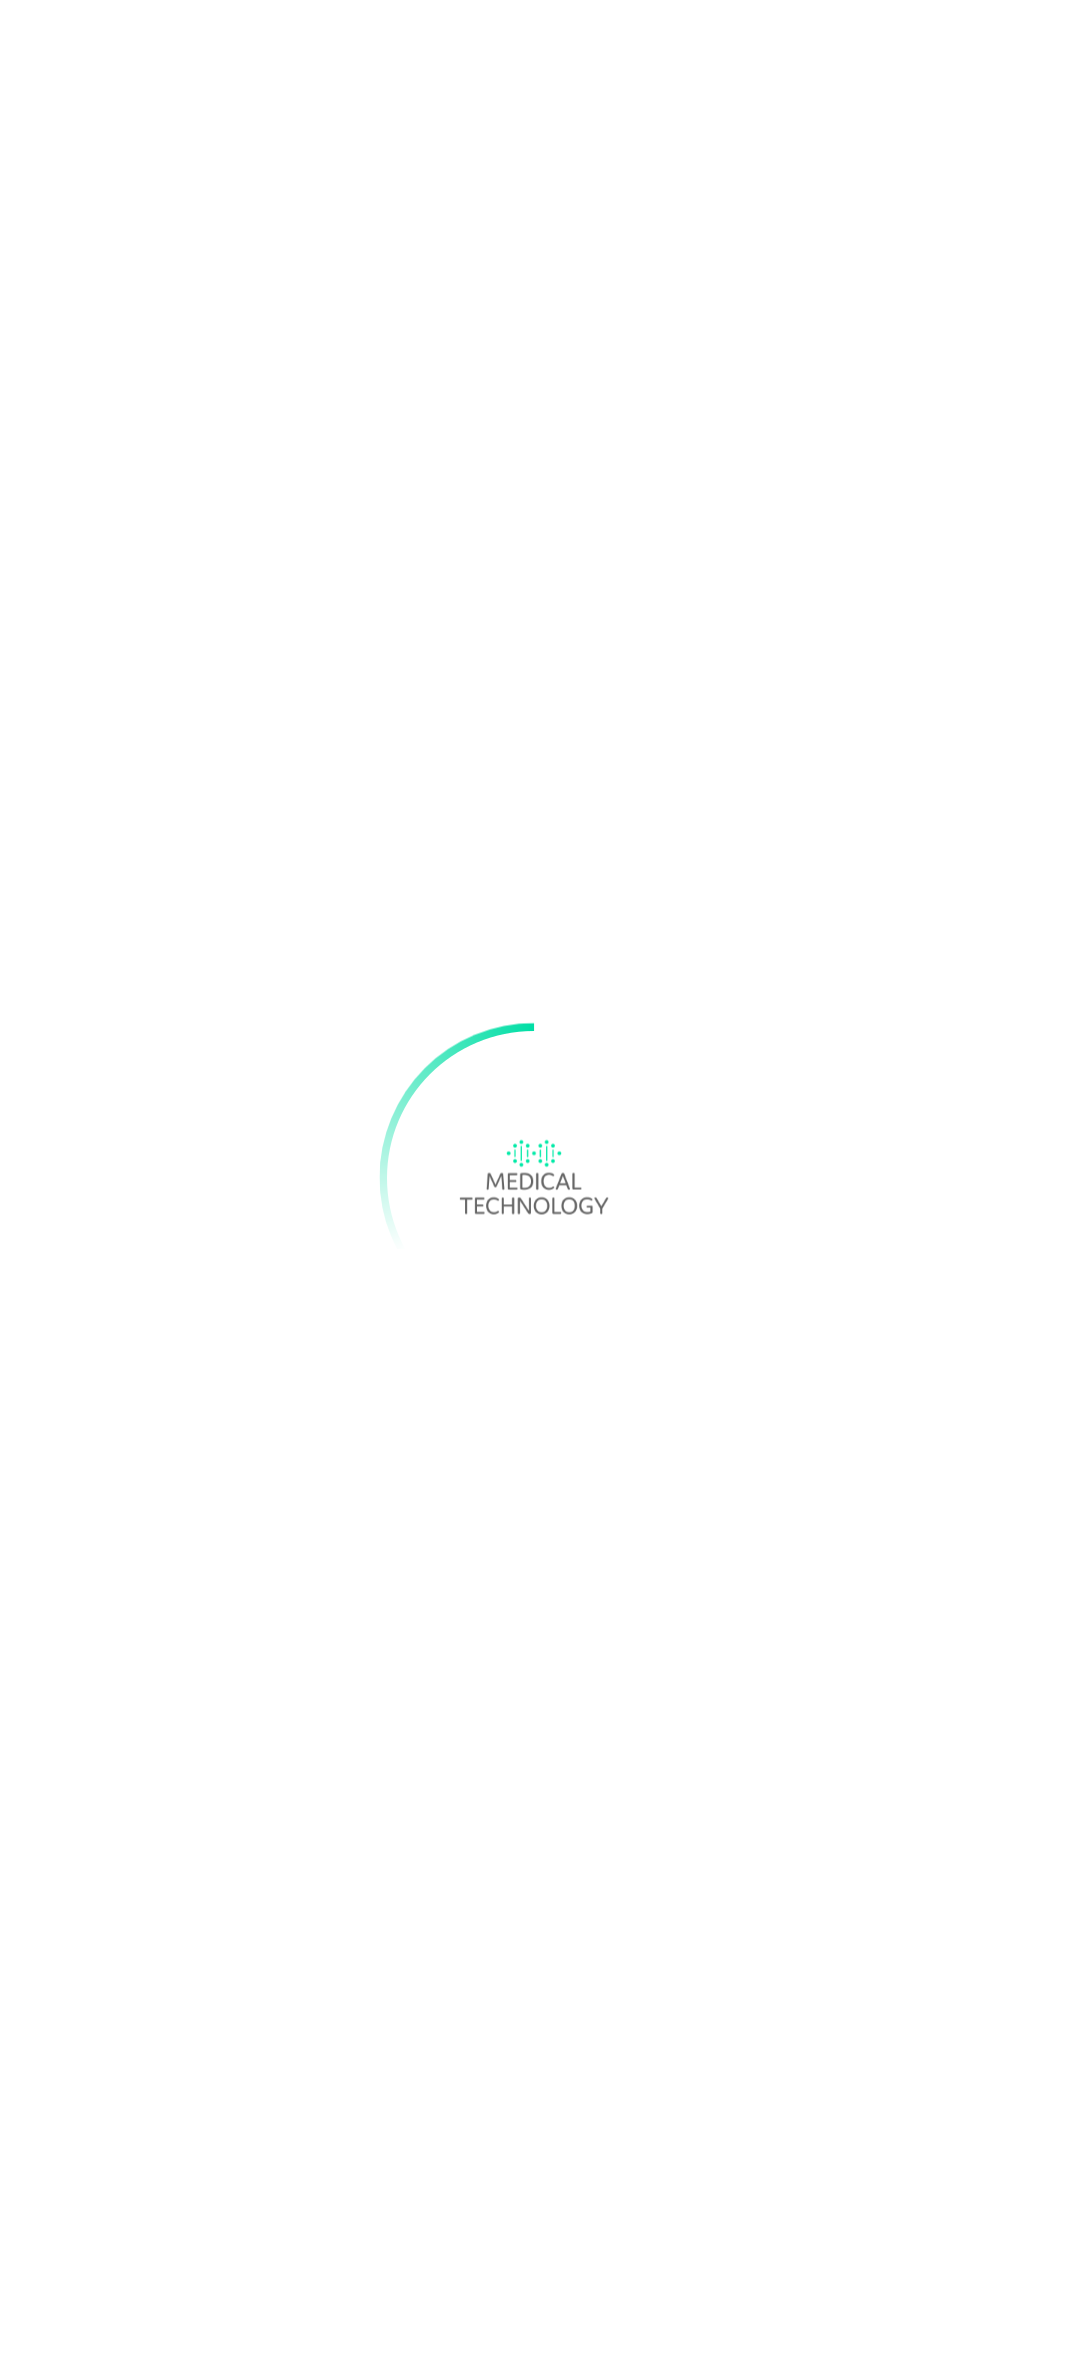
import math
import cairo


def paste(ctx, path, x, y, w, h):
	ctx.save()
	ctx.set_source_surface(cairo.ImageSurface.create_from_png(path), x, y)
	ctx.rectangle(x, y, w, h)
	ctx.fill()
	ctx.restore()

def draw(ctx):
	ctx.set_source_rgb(1, 1, 1)
	ctx.paint()
	paste(ctx, 'media/1.png', 379, 1022, 156, 227)
	ctx.set_source_rgb(1, 1, 1)
	ctx.arc(534, 1178, 147, 0, 2 * math.pi)
	ctx.fill()
	paste(ctx, 'media/2.png', 459, 1139, 150, 76)


surface = cairo.ImageSurface(cairo.FORMAT_RGB24, 1068, 2354)
ctx = cairo.Context(surface)
options = cairo.FontOptions()
options.set_hint_metrics(cairo.HINT_METRICS_OFF)
options.set_hint_style(cairo.HINT_STYLE_NONE)
ctx.set_font_options(options)
ctx.set_miter_limit(4)
draw(ctx)
surface.write_to_png('image.png')
